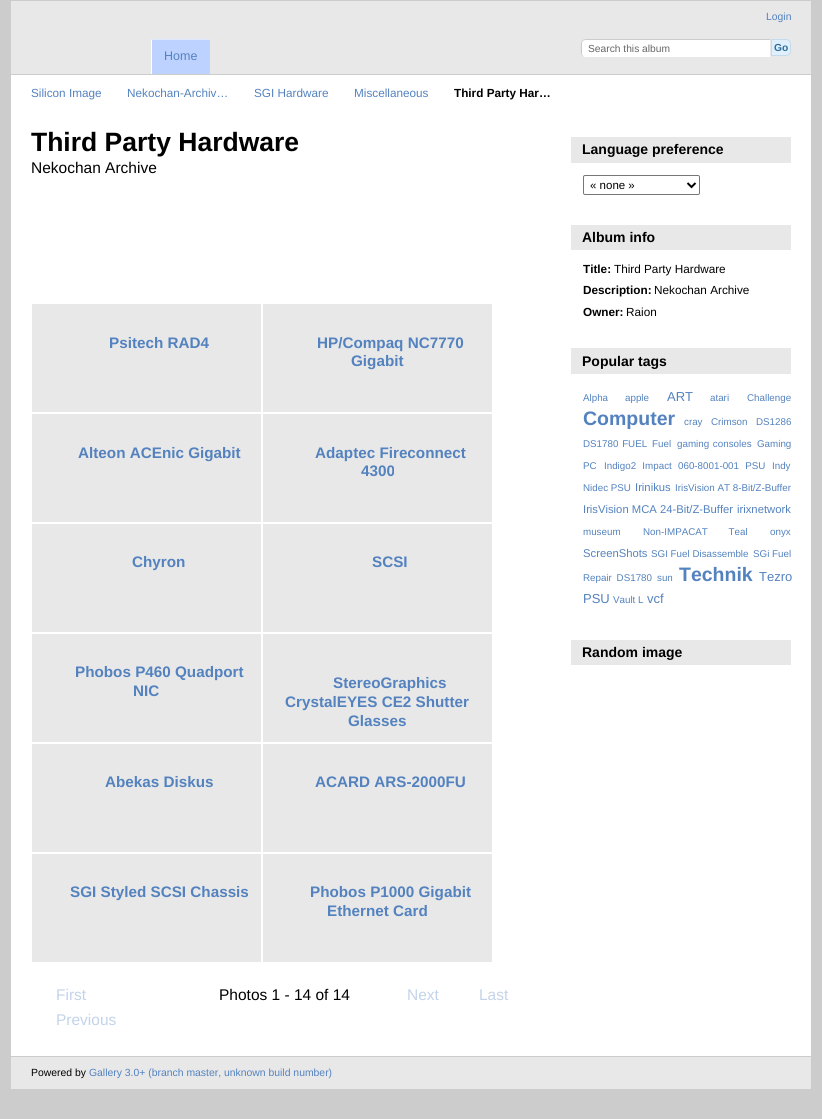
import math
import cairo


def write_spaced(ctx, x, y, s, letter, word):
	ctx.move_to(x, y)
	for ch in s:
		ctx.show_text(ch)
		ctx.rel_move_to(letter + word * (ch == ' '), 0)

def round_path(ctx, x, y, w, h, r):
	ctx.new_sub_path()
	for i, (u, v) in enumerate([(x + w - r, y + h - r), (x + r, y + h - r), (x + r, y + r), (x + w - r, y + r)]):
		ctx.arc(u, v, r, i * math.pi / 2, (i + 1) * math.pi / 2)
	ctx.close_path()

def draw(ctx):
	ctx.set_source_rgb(0.8, 0.8, 0.8)
	ctx.paint()
	ctx.set_source_rgb(1, 1, 1)
	ctx.rectangle(11, 75, 800, 981)
	ctx.fill()
	ctx.set_source_rgb(0.91, 0.91, 0.91)
	ctx.rectangle(11, 1, 800, 73)
	ctx.fill()
	ctx.select_font_face('Liberation Sans')
	ctx.set_font_size(10.4)
	ctx.set_source_rgb(0.325, 0.51, 0.749)
	ctx.move_to(766, 20)
	ctx.show_text('Login')
	ctx.set_source_rgb(1, 1, 1)
	ctx.new_path()
	ctx.move_to(586, 39)
	ctx.line_to(771, 39)
	ctx.line_to(771, 58)
	ctx.line_to(586, 58)
	ctx.curve_to(583, 58, 581, 56, 581, 53)
	ctx.line_to(581, 44)
	ctx.curve_to(581, 41, 583, 39, 586, 39)
	ctx.close_path()
	ctx.fill()
	ctx.set_source_rgb(0.8, 0.8, 0.8)
	ctx.new_path()
	ctx.move_to(586, 39)
	ctx.curve_to(584, 39, 583, 40, 582, 40)
	ctx.line_to(583, 41)
	ctx.curve_to(584, 40, 585, 40, 586, 40)
	ctx.line_to(770, 40)
	ctx.line_to(771, 39)
	ctx.close_path()
	ctx.fill()
	ctx.set_source_rgb(0.91, 0.91, 0.91)
	ctx.new_path()
	ctx.move_to(771, 39)
	ctx.line_to(770, 40)
	ctx.line_to(770, 57)
	ctx.line_to(771, 58)
	ctx.close_path()
	ctx.fill()
	ctx.new_path()
	ctx.move_to(771, 58)
	ctx.line_to(770, 57)
	ctx.line_to(585, 57)
	ctx.line_to(583, 56)
	ctx.line_to(582, 57)
	ctx.curve_to(583, 58, 584, 58, 586, 58)
	ctx.close_path()
	ctx.fill()
	ctx.set_source_rgb(0.8, 0.8, 0.8)
	ctx.new_path()
	ctx.move_to(581, 44)
	ctx.curve_to(581, 47, 580, 54.5, 582.5, 56.5)
	ctx.line_to(583, 56)
	ctx.line_to(582, 54)
	ctx.line_to(582, 43.5)
	ctx.curve_to(582, 42.5, 582.5, 41.5, 583, 41)
	ctx.line_to(582.5, 40.5)
	ctx.curve_to(581.5, 41, 581, 42.5, 581, 44)
	ctx.close_path()
	ctx.fill()
	ctx.set_font_size(10.25)
	ctx.set_source_rgb(0.4, 0.4, 0.4)
	ctx.move_to(588, 52)
	ctx.show_text('Search this album')
	ctx.set_source_rgb(0.875, 0.937, 0.988)
	ctx.new_path()
	ctx.move_to(771.5, 39.5)
	ctx.line_to(786, 39.5)
	ctx.curve_to(788.5, 39.5, 790.5, 41.5, 790.5, 44)
	ctx.line_to(790.5, 51)
	ctx.curve_to(790.5, 53.5, 788.5, 55.5, 786, 55.5)
	ctx.line_to(771.5, 55.5)
	ctx.close_path()
	ctx.fill_preserve()
	ctx.set_source_rgb(0.773, 0.859, 0.925)
	ctx.set_line_width(1)
	ctx.stroke()
	ctx.select_font_face('Liberation Sans', cairo.FONT_SLANT_NORMAL, cairo.FONT_WEIGHT_BOLD)
	ctx.set_source_rgb(0.18, 0.431, 0.62)
	ctx.move_to(774, 51)
	ctx.show_text('Go')
	ctx.set_source_rgb(0.741, 0.824, 1)
	ctx.rectangle(151, 39, 59, 35)
	ctx.fill()
	ctx.set_source_rgb(0.871, 0.914, 1)
	ctx.new_path()
	ctx.move_to(151, 39)
	ctx.line_to(210, 39)
	ctx.line_to(210, 40)
	ctx.line_to(152, 40)
	ctx.close_path()
	ctx.fill()
	ctx.set_source_rgb(1, 1, 1)
	ctx.new_path()
	ctx.move_to(151, 74)
	ctx.line_to(151, 39)
	ctx.line_to(152, 40)
	ctx.line_to(152, 74)
	ctx.close_path()
	ctx.fill()
	ctx.select_font_face('Liberation Sans')
	ctx.set_font_size(12.5)
	ctx.set_source_rgb(0.325, 0.51, 0.749)
	ctx.move_to(164, 60)
	ctx.show_text('Home')
	ctx.set_font_size(11.75)
	for x, y, s in [
		(31, 97, 'Silicon Image'),
		(127, 97, 'Nekochan-Archiv…'),
		(254, 97, 'SGI Hardware'),
		(354, 97, 'Miscellaneous'),
	]:
		ctx.move_to(x, y)
		ctx.show_text(s)
	ctx.select_font_face('Liberation Sans', cairo.FONT_SLANT_NORMAL, cairo.FONT_WEIGHT_BOLD)
	ctx.set_source_rgb(0, 0, 0)
	ctx.move_to(454, 97)
	ctx.show_text('Third Party Har…')
	ctx.set_font_size(26.5)
	ctx.move_to(31, 151)
	ctx.show_text('Third Party Hardware')
	ctx.select_font_face('Liberation Sans')
	ctx.set_font_size(15.5)
	ctx.move_to(31, 173)
	ctx.show_text('Nekochan Archive')
	ctx.set_source_rgb(0.91, 0.91, 0.91)
	ctx.rectangle(32, 304, 229, 108)
	ctx.fill()
	ctx.select_font_face('Liberation Sans', cairo.FONT_SLANT_NORMAL, cairo.FONT_WEIGHT_BOLD)
	ctx.set_font_size(15.25)
	ctx.set_source_rgb(0.325, 0.51, 0.749)
	ctx.move_to(109, 348)
	ctx.show_text('Psitech RAD4')
	ctx.set_source_rgb(0.91, 0.91, 0.91)
	ctx.rectangle(263, 304, 229, 108)
	ctx.fill()
	ctx.set_source_rgb(0.325, 0.51, 0.749)
	ctx.move_to(317, 348)
	ctx.show_text('HP/Compaq NC7770')
	ctx.move_to(351, 366)
	ctx.show_text('Gigabit')
	ctx.set_source_rgb(0.91, 0.91, 0.91)
	ctx.rectangle(32, 414, 229, 108)
	ctx.fill()
	ctx.set_source_rgb(0.325, 0.51, 0.749)
	ctx.move_to(78, 458)
	ctx.show_text('Alteon ACEnic Gigabit')
	ctx.set_source_rgb(0.91, 0.91, 0.91)
	ctx.rectangle(263, 414, 229, 108)
	ctx.fill()
	ctx.set_source_rgb(0.325, 0.51, 0.749)
	ctx.move_to(315, 458)
	ctx.show_text('Adaptec Fireconnect')
	ctx.move_to(361, 476)
	ctx.show_text('4300')
	ctx.set_source_rgb(0.91, 0.91, 0.91)
	ctx.rectangle(32, 524, 229, 108)
	ctx.fill()
	ctx.set_source_rgb(0.325, 0.51, 0.749)
	ctx.move_to(132, 567)
	ctx.show_text('Chyron')
	ctx.set_source_rgb(0.91, 0.91, 0.91)
	ctx.rectangle(263, 524, 229, 108)
	ctx.fill()
	ctx.set_source_rgb(0.325, 0.51, 0.749)
	ctx.move_to(372, 567)
	ctx.show_text('SCSI')
	ctx.set_source_rgb(0.91, 0.91, 0.91)
	ctx.rectangle(32, 634, 229, 108)
	ctx.fill()
	ctx.set_source_rgb(0.325, 0.51, 0.749)
	ctx.move_to(75, 677)
	ctx.show_text('Phobos P460 Quadport')
	ctx.move_to(133, 696)
	ctx.show_text('NIC')
	ctx.set_source_rgb(0.91, 0.91, 0.91)
	ctx.rectangle(263, 634, 229, 108)
	ctx.fill()
	ctx.set_source_rgb(0.325, 0.51, 0.749)
	for x, y, s in [
		(333, 688, 'StereoGraphics'),
		(285, 707, 'CrystalEYES CE2 Shutter'),
		(348, 726, 'Glasses'),
	]:
		ctx.move_to(x, y)
		ctx.show_text(s)
	ctx.set_source_rgb(0.91, 0.91, 0.91)
	ctx.rectangle(32, 744, 229, 108)
	ctx.fill()
	ctx.set_source_rgb(0.325, 0.51, 0.749)
	ctx.move_to(105, 787)
	ctx.show_text('Abekas Diskus')
	ctx.set_source_rgb(0.91, 0.91, 0.91)
	ctx.rectangle(263, 744, 229, 108)
	ctx.fill()
	ctx.set_source_rgb(0.325, 0.51, 0.749)
	ctx.move_to(315, 787)
	ctx.show_text('ACARD ARS-2000FU')
	ctx.set_source_rgb(0.91, 0.91, 0.91)
	ctx.rectangle(32, 854, 229, 108)
	ctx.fill()
	ctx.set_source_rgb(0.325, 0.51, 0.749)
	ctx.move_to(70, 897)
	ctx.show_text('SGI Styled SCSI Chassis')
	ctx.set_source_rgb(0.91, 0.91, 0.91)
	ctx.rectangle(263, 854, 229, 108)
	ctx.fill()
	ctx.set_source_rgb(0.325, 0.51, 0.749)
	ctx.move_to(310, 897)
	ctx.show_text('Phobos P1000 Gigabit')
	ctx.move_to(327, 916)
	ctx.show_text('Ethernet Card')
	ctx.select_font_face('Liberation Sans')
	ctx.set_font_size(15.5)
	ctx.set_source_rgb(0.765, 0.827, 0.914)
	ctx.move_to(56, 1000)
	ctx.show_text('First')
	ctx.move_to(56, 1025)
	ctx.show_text('Previous')
	ctx.set_source_rgb(0, 0, 0)
	ctx.move_to(219, 1000)
	ctx.show_text('Photos 1 - 14 of 14')
	ctx.set_source_rgb(0.765, 0.827, 0.914)
	ctx.move_to(407, 1000)
	ctx.show_text('Next')
	ctx.move_to(479, 1000)
	ctx.show_text('Last')
	ctx.set_source_rgb(0.91, 0.91, 0.91)
	ctx.rectangle(571, 137, 220, 26)
	ctx.fill()
	ctx.select_font_face('Liberation Sans', cairo.FONT_SLANT_NORMAL, cairo.FONT_WEIGHT_BOLD)
	ctx.set_font_size(14)
	ctx.set_source_rgb(0, 0, 0)
	ctx.move_to(582, 154)
	ctx.show_text('Language preference')
	round_path(ctx, 583.5, 175.5, 116, 19, 1.5)
	ctx.set_source_rgb(0.463, 0.463, 0.463)
	ctx.stroke()
	ctx.new_path()
	ctx.move_to(687.5, 183)
	ctx.line_to(691.5, 187)
	ctx.line_to(695.5, 183)
	ctx.set_source_rgb(0, 0, 0)
	ctx.set_line_width(2)
	ctx.stroke()
	ctx.select_font_face('Liberation Sans')
	ctx.set_font_size(11.5)
	ctx.move_to(590, 189)
	ctx.show_text('« none »')
	ctx.set_source_rgb(0.91, 0.91, 0.91)
	ctx.rectangle(571, 225, 220, 25)
	ctx.fill()
	ctx.select_font_face('Liberation Sans', cairo.FONT_SLANT_NORMAL, cairo.FONT_WEIGHT_BOLD)
	ctx.set_font_size(14)
	ctx.set_source_rgb(0, 0, 0)
	ctx.move_to(582, 242)
	ctx.show_text('Album info')
	ctx.set_font_size(11.75)
	ctx.move_to(583, 273)
	ctx.show_text('Title:')
	ctx.select_font_face('Liberation Sans')
	ctx.move_to(614, 273)
	ctx.show_text('Third Party Hardware')
	ctx.select_font_face('Liberation Sans', cairo.FONT_SLANT_NORMAL, cairo.FONT_WEIGHT_BOLD)
	ctx.move_to(583, 294)
	ctx.show_text('Description:')
	ctx.select_font_face('Liberation Sans')
	ctx.move_to(654, 294)
	ctx.show_text('Nekochan Archive')
	ctx.select_font_face('Liberation Sans', cairo.FONT_SLANT_NORMAL, cairo.FONT_WEIGHT_BOLD)
	ctx.move_to(583, 316)
	ctx.show_text('Owner:')
	ctx.select_font_face('Liberation Sans')
	ctx.move_to(626, 316)
	ctx.show_text('Raion')
	ctx.set_source_rgb(0.91, 0.91, 0.91)
	ctx.rectangle(571, 348, 220, 26)
	ctx.fill()
	ctx.select_font_face('Liberation Sans', cairo.FONT_SLANT_NORMAL, cairo.FONT_WEIGHT_BOLD)
	ctx.set_font_size(14)
	ctx.set_source_rgb(0, 0, 0)
	ctx.move_to(582, 366)
	ctx.show_text('Popular tags')
	ctx.select_font_face('Liberation Sans')
	ctx.set_font_size(9.8)
	ctx.set_source_rgb(0.325, 0.51, 0.749)
	ctx.move_to(583, 401)
	ctx.show_text('Alpha')
	ctx.move_to(625, 401)
	ctx.show_text('apple')
	ctx.set_font_size(13)
	ctx.move_to(667, 401)
	ctx.show_text('ART')
	ctx.set_font_size(9.8)
	ctx.move_to(710, 401)
	ctx.show_text('atari')
	ctx.move_to(747, 401)
	ctx.show_text('Challenge')
	ctx.select_font_face('Liberation Sans', cairo.FONT_SLANT_NORMAL, cairo.FONT_WEIGHT_BOLD)
	ctx.set_font_size(19.5)
	ctx.move_to(583, 425)
	ctx.show_text('Computer')
	ctx.select_font_face('Liberation Sans')
	ctx.set_font_size(9.8)
	for x, y, s in [
		(684, 425, 'cray'),
		(711, 425, 'Crimson'),
		(756, 425, 'DS1286'),
	]:
		ctx.move_to(x, y)
		ctx.show_text(s)
	write_spaced(ctx, 583, 447, 'DS1780 FUEL', 0, 1)
	ctx.move_to(652, 447)
	ctx.show_text('Fuel')
	write_spaced(ctx, 677, 447, 'gaming consoles', 0, 1)
	ctx.move_to(757, 447)
	ctx.show_text('Gaming')
	ctx.move_to(583, 469)
	ctx.show_text('PC')
	write_spaced(ctx, 604, 469, 'Indigo2 Impact 060-8001-001 PSU', 0, 3.5)
	ctx.move_to(772, 469)
	ctx.show_text('Indy')
	ctx.move_to(583, 491)
	ctx.show_text('Nidec PSU')
	ctx.set_font_size(11.25)
	ctx.move_to(635, 491)
	ctx.show_text('Irinikus')
	ctx.set_font_size(9.8)
	ctx.move_to(675, 491)
	ctx.show_text('IrisVision AT 8-Bit/Z-Buffer')
	ctx.set_font_size(11.25)
	ctx.move_to(583, 513)
	ctx.show_text('IrisVision MCA 24-Bit/Z-Buffer')
	ctx.move_to(737, 513)
	ctx.show_text('irixnetwork')
	ctx.set_font_size(9.8)
	ctx.move_to(583, 535)
	ctx.show_text('museum')
	write_spaced(ctx, 643, 535, 'Non-IMPACAT Teal', 0, 18)
	ctx.move_to(770, 535)
	ctx.show_text('onyx')
	ctx.set_font_size(11.25)
	ctx.move_to(583, 557)
	ctx.show_text('ScreenShots')
	ctx.set_font_size(9.8)
	ctx.move_to(651, 557)
	ctx.show_text('SGI Fuel Disassemble')
	ctx.move_to(753, 557)
	ctx.show_text('SGi Fuel')
	write_spaced(ctx, 583, 581, 'Repair DS1780', 0, 2)
	ctx.move_to(657, 581)
	ctx.show_text('sun')
	ctx.select_font_face('Liberation Sans', cairo.FONT_SLANT_NORMAL, cairo.FONT_WEIGHT_BOLD)
	ctx.set_font_size(19.5)
	ctx.move_to(679, 581)
	ctx.show_text('Technik')
	ctx.select_font_face('Liberation Sans')
	ctx.set_font_size(13)
	ctx.move_to(759, 581)
	ctx.show_text('Tezro')
	ctx.move_to(583, 603)
	ctx.show_text('PSU')
	ctx.set_font_size(9.8)
	ctx.move_to(613, 603)
	ctx.show_text('Vault L')
	ctx.set_font_size(13)
	ctx.move_to(647, 603)
	ctx.show_text('vcf')
	ctx.set_source_rgb(0.91, 0.91, 0.91)
	ctx.rectangle(571, 640, 220, 25)
	ctx.fill()
	ctx.select_font_face('Liberation Sans', cairo.FONT_SLANT_NORMAL, cairo.FONT_WEIGHT_BOLD)
	ctx.set_font_size(14)
	ctx.set_source_rgb(0, 0, 0)
	ctx.move_to(582, 657)
	ctx.show_text('Random image')
	ctx.set_source_rgb(0.91, 0.91, 0.91)
	ctx.rectangle(11, 1057, 800, 32)
	ctx.fill()
	ctx.select_font_face('Liberation Sans')
	ctx.set_font_size(10.4)
	ctx.set_source_rgb(0, 0, 0)
	ctx.move_to(31, 1076)
	ctx.show_text('Powered by')
	ctx.set_source_rgb(0.325, 0.51, 0.749)
	ctx.move_to(89, 1076)
	ctx.show_text('Gallery 3.0+ (branch master, unknown build number)')


surface = cairo.ImageSurface(cairo.FORMAT_RGB24, 822, 1119)
ctx = cairo.Context(surface)
options = cairo.FontOptions()
options.set_hint_metrics(cairo.HINT_METRICS_OFF)
options.set_hint_style(cairo.HINT_STYLE_NONE)
ctx.set_font_options(options)
ctx.set_miter_limit(4)
draw(ctx)
surface.write_to_png('image.png')
